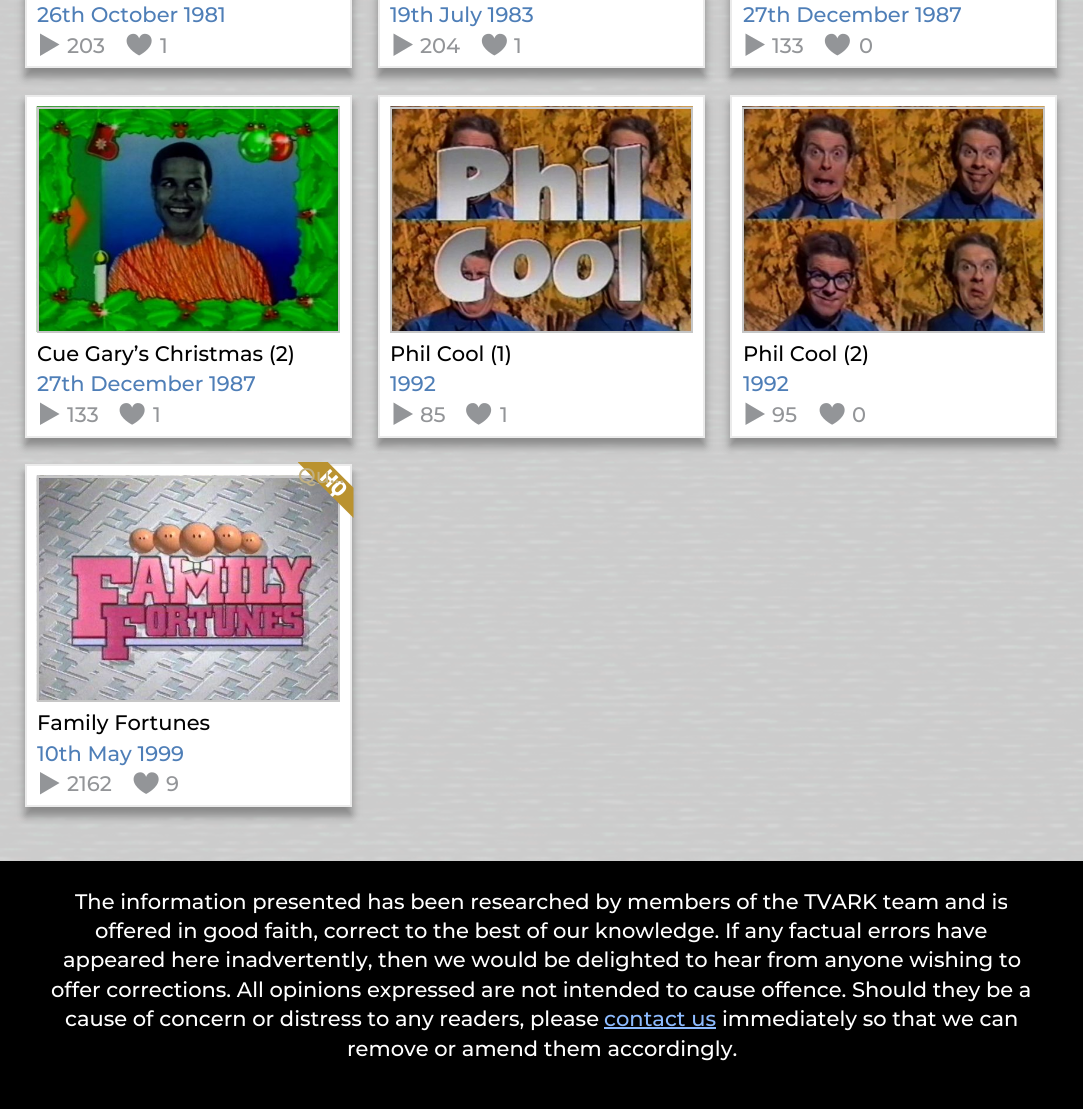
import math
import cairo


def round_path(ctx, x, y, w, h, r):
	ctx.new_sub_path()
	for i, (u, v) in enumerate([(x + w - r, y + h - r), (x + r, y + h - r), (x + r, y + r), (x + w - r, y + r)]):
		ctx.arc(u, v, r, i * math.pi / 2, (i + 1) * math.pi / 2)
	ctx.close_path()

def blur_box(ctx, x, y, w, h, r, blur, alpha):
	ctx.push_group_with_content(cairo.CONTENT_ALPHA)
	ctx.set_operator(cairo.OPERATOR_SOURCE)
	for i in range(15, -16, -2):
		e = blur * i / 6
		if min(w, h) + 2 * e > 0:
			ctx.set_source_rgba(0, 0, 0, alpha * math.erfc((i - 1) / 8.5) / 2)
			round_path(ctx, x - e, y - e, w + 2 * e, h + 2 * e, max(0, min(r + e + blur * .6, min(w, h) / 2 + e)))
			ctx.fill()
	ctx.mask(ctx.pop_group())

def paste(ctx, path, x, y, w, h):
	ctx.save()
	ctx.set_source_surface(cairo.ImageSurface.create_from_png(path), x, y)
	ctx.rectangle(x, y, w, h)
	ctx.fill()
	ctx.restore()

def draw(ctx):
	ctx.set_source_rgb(1, 1, 1)
	ctx.paint()
	paste(ctx, 'media/1.png', 0, 0, 1083, 861)
	ctx.set_source_rgba(1, 1, 1, 0.8)
	ctx.rectangle(0, 0, 1083, 861)
	ctx.fill()
	ctx.set_source_rgb(0.533, 0.533, 0.533)
	blur_box(ctx, 25, -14, 327, 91, 0, 4.5, 1)
	ctx.set_source_rgb(1, 1, 1)
	ctx.rectangle(26, -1, 325, 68)
	ctx.fill_preserve()
	ctx.set_source_rgb(0.918, 0.918, 0.918)
	ctx.stroke()
	ctx.select_font_face('Montserrat Medium')
	ctx.set_font_size(21)
	ctx.set_source_rgb(0.306, 0.494, 0.718)
	ctx.move_to(37, 22)
	ctx.show_text('26th October 1981')
	ctx.set_source_rgb(0.576, 0.584, 0.596)
	ctx.move_to(67, 53)
	ctx.show_text('203')
	ctx.new_path()
	ctx.move_to(40, 56)
	ctx.line_to(59.5, 44.5)
	ctx.line_to(40, 33.5)
	ctx.close_path()
	ctx.fill()
	paste(ctx, 'media/2.png', 126, 33, 26, 23)
	ctx.move_to(160, 53)
	ctx.show_text('1')
	ctx.set_source_rgb(0.533, 0.533, 0.533)
	blur_box(ctx, 378, -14, 327, 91, 0, 4.5, 1)
	ctx.set_source_rgb(1, 1, 1)
	ctx.rectangle(379, -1, 325, 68)
	ctx.fill_preserve()
	ctx.set_source_rgb(0.918, 0.918, 0.918)
	ctx.stroke()
	ctx.set_source_rgb(0.306, 0.494, 0.718)
	ctx.move_to(390, 22)
	ctx.show_text('19th July 1983')
	ctx.set_source_rgb(0.576, 0.584, 0.596)
	ctx.move_to(420, 53)
	ctx.show_text('204')
	ctx.new_path()
	ctx.move_to(393.5, 56)
	ctx.line_to(413, 44.5)
	ctx.line_to(393.5, 33.5)
	ctx.close_path()
	ctx.fill()
	paste(ctx, 'media/3.png', 481, 33, 26, 23)
	ctx.move_to(514, 53)
	ctx.show_text('1')
	ctx.set_source_rgb(0.533, 0.533, 0.533)
	blur_box(ctx, 730, -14, 327, 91, 0, 4.5, 1)
	ctx.set_source_rgb(1, 1, 1)
	ctx.rectangle(731, -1, 325, 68)
	ctx.fill_preserve()
	ctx.set_source_rgb(0.918, 0.918, 0.918)
	ctx.stroke()
	ctx.set_source_rgb(0.306, 0.494, 0.718)
	ctx.move_to(743, 22)
	ctx.show_text('27th December 1987')
	ctx.set_source_rgb(0.576, 0.584, 0.596)
	ctx.move_to(772, 53)
	ctx.show_text('133')
	ctx.new_path()
	ctx.move_to(745.5, 56)
	ctx.line_to(765, 44.5)
	ctx.line_to(745.5, 33.5)
	ctx.close_path()
	ctx.fill()
	paste(ctx, 'media/3.png', 824, 33, 26, 23)
	ctx.move_to(859, 53)
	ctx.show_text('0')
	ctx.set_source_rgb(0.533, 0.533, 0.533)
	blur_box(ctx, 25, 103, 327, 343, 0, 4.5, 1)
	ctx.set_source_rgb(1, 1, 1)
	ctx.rectangle(26, 96, 325, 341)
	ctx.fill_preserve()
	ctx.set_source_rgb(0.918, 0.918, 0.918)
	ctx.stroke()
	paste(ctx, 'media/4.png', 36, 106, 304, 226)
	ctx.rectangle(38, 108, 301, 224)
	ctx.set_source_rgb(0.776, 0.776, 0.776)
	ctx.stroke()
	ctx.set_source_rgb(0, 0, 0)
	ctx.move_to(37, 361)
	ctx.show_text('Cue Gary’s Christmas (2)')
	ctx.set_source_rgb(0.306, 0.494, 0.718)
	ctx.move_to(37, 391)
	ctx.show_text('27th December 1987')
	ctx.set_source_rgb(0.576, 0.584, 0.596)
	ctx.move_to(67, 422)
	ctx.show_text('133')
	ctx.new_path()
	ctx.move_to(40, 425)
	ctx.line_to(59.5, 414)
	ctx.line_to(40, 402.5)
	ctx.close_path()
	ctx.fill()
	paste(ctx, 'media/5.png', 119, 403, 26, 22)
	ctx.move_to(153, 422)
	ctx.show_text('1')
	ctx.set_source_rgb(0.533, 0.533, 0.533)
	blur_box(ctx, 378, 103, 327, 343, 0, 4.5, 1)
	ctx.set_source_rgb(1, 1, 1)
	ctx.rectangle(379, 96, 325, 341)
	ctx.fill_preserve()
	ctx.set_source_rgb(0.918, 0.918, 0.918)
	ctx.stroke()
	paste(ctx, 'media/6.png', 390, 106, 303, 225)
	ctx.rectangle(391, 108, 301, 224)
	ctx.set_source_rgb(0.776, 0.776, 0.776)
	ctx.stroke()
	ctx.set_source_rgb(0, 0, 0)
	ctx.move_to(390, 361)
	ctx.show_text('Phil Cool (1)')
	ctx.set_source_rgb(0.306, 0.494, 0.718)
	ctx.move_to(390, 391)
	ctx.show_text('1992')
	ctx.set_source_rgb(0.576, 0.584, 0.596)
	ctx.move_to(420, 422)
	ctx.show_text('85')
	ctx.new_path()
	ctx.move_to(393.5, 425)
	ctx.line_to(413, 414)
	ctx.line_to(393.5, 402.5)
	ctx.close_path()
	ctx.fill()
	paste(ctx, 'media/7.png', 466, 403, 26, 22)
	ctx.move_to(500, 422)
	ctx.show_text('1')
	ctx.set_source_rgb(0.533, 0.533, 0.533)
	blur_box(ctx, 730, 103, 327, 343, 0, 4.5, 1)
	ctx.set_source_rgb(1, 1, 1)
	ctx.rectangle(731, 96, 325, 341)
	ctx.fill_preserve()
	ctx.set_source_rgb(0.918, 0.918, 0.918)
	ctx.stroke()
	paste(ctx, 'media/8.png', 742, 106, 303, 225)
	ctx.rectangle(743, 108, 301, 224)
	ctx.set_source_rgb(0.776, 0.776, 0.776)
	ctx.stroke()
	ctx.set_source_rgb(0, 0, 0)
	ctx.move_to(743, 361)
	ctx.show_text('Phil Cool (2)')
	ctx.set_source_rgb(0.306, 0.494, 0.718)
	ctx.move_to(743, 391)
	ctx.show_text('1992')
	ctx.set_source_rgb(0.576, 0.584, 0.596)
	ctx.move_to(772, 422)
	ctx.show_text('95')
	ctx.new_path()
	ctx.move_to(745.5, 425)
	ctx.line_to(765, 414)
	ctx.line_to(745.5, 402.5)
	ctx.close_path()
	ctx.fill()
	paste(ctx, 'media/5.png', 819, 403, 26, 22)
	ctx.move_to(852, 422)
	ctx.show_text('0')
	ctx.set_source_rgb(0.533, 0.533, 0.533)
	blur_box(ctx, 25, 473, 327, 343, 0, 4.5, 1)
	ctx.set_source_rgb(1, 1, 1)
	ctx.rectangle(26, 465, 325, 341)
	ctx.fill_preserve()
	ctx.set_source_rgb(0.918, 0.918, 0.918)
	ctx.stroke()
	paste(ctx, 'media/10.png', 36, 475, 302, 227)
	ctx.rectangle(38, 477, 301, 224)
	ctx.set_source_rgb(0.776, 0.776, 0.776)
	ctx.stroke()
	paste(ctx, 'media/9.png', 298, 462, 56, 56)
	ctx.set_source_rgb(0.761, 0.69, 0.51)
	ctx.move_to(298, 483)
	ctx.show_text('Qu…')
	ctx.set_source_rgb(0, 0, 0)
	ctx.move_to(37, 730)
	ctx.show_text('Family Fortunes')
	ctx.set_source_rgb(0.306, 0.494, 0.718)
	ctx.move_to(37, 761)
	ctx.show_text('10th May 1999')
	ctx.set_source_rgb(0.576, 0.584, 0.596)
	ctx.move_to(67, 791)
	ctx.show_text('2162')
	ctx.new_path()
	ctx.move_to(40, 794.5)
	ctx.line_to(59.5, 783)
	ctx.line_to(40, 772)
	ctx.close_path()
	ctx.fill()
	paste(ctx, 'media/11.png', 133, 772, 26, 22)
	ctx.move_to(166, 791)
	ctx.show_text('9')
	ctx.set_source_rgb(0, 0, 0)
	ctx.rectangle(0, 861, 1083, 248)
	ctx.fill()
	ctx.set_source_rgb(1, 1, 1)
	for x, y, s in [
		(75, 909, 'The information presented has been researched by members of the TVARK team and is'),
		(95, 938, 'offered in good faith, correct to the best of our knowledge. If any factual errors have'),
		(63, 967, 'appeared here inadvertently, then we would be delighted to hear from anyone wishing to'),
		(51, 997, 'offer corrections. All opinions expressed are not intended to cause offence. Should they be a'),
		(65, 1026, 'cause of concern or distress to any readers, please'),
	]:
		ctx.move_to(x, y)
		ctx.show_text(s)
	ctx.set_source_rgb(0.553, 0.733, 1)
	ctx.move_to(604, 1026)
	ctx.show_text('contact us')
	ctx.rectangle(604, 1027, 112, 2)
	ctx.fill()
	ctx.set_source_rgb(1, 1, 1)
	ctx.move_to(722, 1026)
	ctx.show_text('immediately so that we can')
	ctx.move_to(347, 1056)
	ctx.show_text('remove or amend them accordingly.')


surface = cairo.ImageSurface(cairo.FORMAT_RGB24, 1083, 1109)
ctx = cairo.Context(surface)
options = cairo.FontOptions()
options.set_hint_metrics(cairo.HINT_METRICS_OFF)
options.set_hint_style(cairo.HINT_STYLE_NONE)
ctx.set_font_options(options)
ctx.set_miter_limit(4)
draw(ctx)
surface.write_to_png('image.png')
